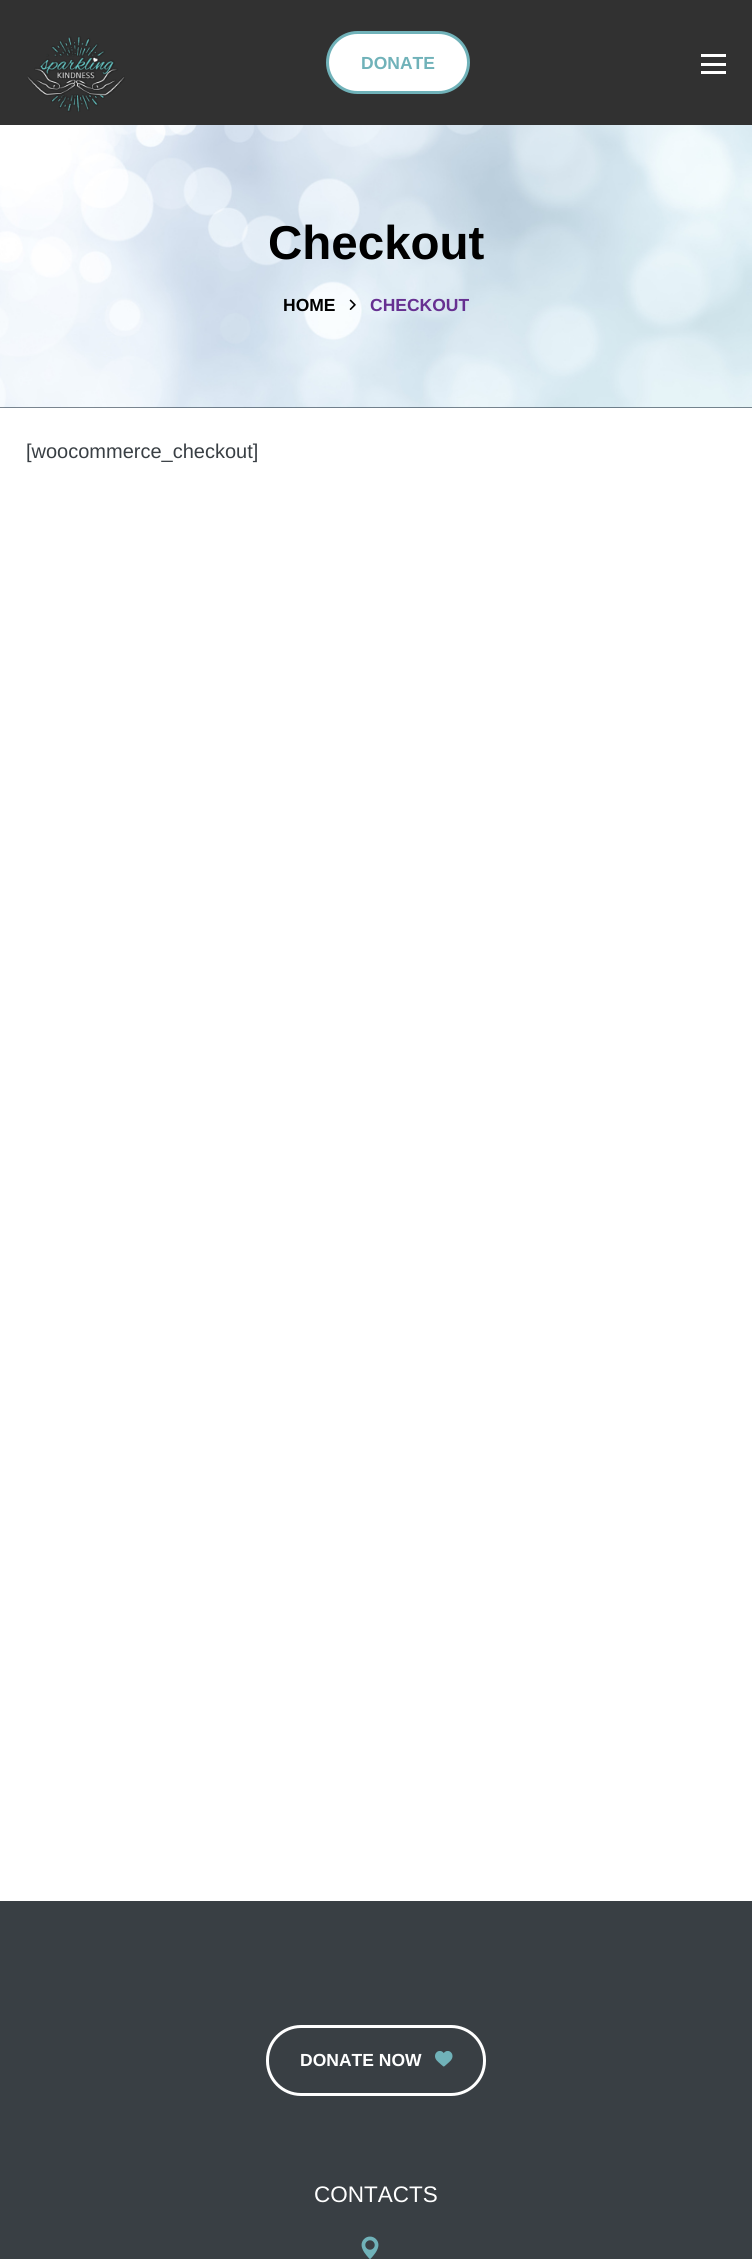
import math
import cairo


def round_path(ctx, x, y, w, h, r):
	ctx.new_sub_path()
	for i, (u, v) in enumerate([(x + w - r, y + h - r), (x + r, y + h - r), (x + r, y + r), (x + w - r, y + r)]):
		ctx.arc(u, v, r, i * math.pi / 2, (i + 1) * math.pi / 2)
	ctx.close_path()

def paste(ctx, path, x, y, w, h):
	ctx.save()
	ctx.set_source_surface(cairo.ImageSurface.create_from_png(path), x, y)
	ctx.rectangle(x, y, w, h)
	ctx.fill()
	ctx.restore()

def draw(ctx):
	ctx.set_source_rgb(1, 1, 1)
	ctx.paint()
	ctx.set_source_rgb(0.192, 0.192, 0.192)
	ctx.rectangle(0, 0, 752, 125)
	ctx.fill()
	paste(ctx, 'media/1.png', 27, 36, 98, 76)
	ctx.set_source_rgb(1, 1, 1)
	round_path(ctx, 327.5, 32.5, 141, 60, 30)
	ctx.fill_preserve()
	ctx.set_source_rgb(0.439, 0.698, 0.725)
	ctx.set_line_width(3)
	ctx.stroke()
	ctx.select_font_face('Liberation Sans', cairo.FONT_SLANT_NORMAL, cairo.FONT_WEIGHT_BOLD)
	ctx.set_font_size(17.5)
	ctx.move_to(361, 69)
	ctx.show_text('DONATE')
	ctx.set_source_rgb(1, 1, 1)
	ctx.rectangle(701, 54, 25, 3)
	ctx.rectangle(701, 63, 25, 3)
	ctx.rectangle(701, 71, 25, 3)
	ctx.fill()
	ctx.set_source_rgb(0, 0.075, 0.133)
	ctx.rectangle(0, 407, 752, 1)
	ctx.fill()
	paste(ctx, 'media/2.png', 0, 125, 752, 283)
	ctx.set_font_size(47.5)
	ctx.set_source_rgb(0, 0, 0)
	ctx.move_to(268, 259)
	ctx.show_text('Checkout')
	ctx.set_font_size(17.5)
	ctx.move_to(283, 311)
	ctx.show_text('HOME')
	paste(ctx, 'media/3.png', 349, 299, 7, 11)
	ctx.set_source_rgb(0.4, 0.188, 0.569)
	ctx.move_to(370, 311)
	ctx.show_text('CHECKOUT')
	ctx.select_font_face('Liberation Sans')
	ctx.set_font_size(20)
	ctx.set_source_rgb(0.224, 0.247, 0.267)
	ctx.move_to(26, 458)
	ctx.show_text('[woocommerce_checkout]')
	ctx.rectangle(0, 1901, 752, 358)
	ctx.fill()
	round_path(ctx, 267.5, 2026.5, 217, 68, 33.5)
	ctx.set_source_rgb(1, 1, 1)
	ctx.stroke()
	ctx.select_font_face('Liberation Sans', cairo.FONT_SLANT_NORMAL, cairo.FONT_WEIGHT_BOLD)
	ctx.set_font_size(17.5)
	ctx.move_to(300, 2066)
	ctx.show_text('DONATE NOW')
	paste(ctx, 'media/4.png', 435, 2051, 18, 16)
	ctx.select_font_face('Liberation Sans')
	ctx.set_font_size(22.5)
	ctx.move_to(314, 2202)
	ctx.show_text('CONTACTS')
	paste(ctx, 'media/5.png', 361, 2236, 18, 23)


surface = cairo.ImageSurface(cairo.FORMAT_RGB24, 752, 2259)
ctx = cairo.Context(surface)
options = cairo.FontOptions()
options.set_hint_metrics(cairo.HINT_METRICS_OFF)
options.set_hint_style(cairo.HINT_STYLE_NONE)
ctx.set_font_options(options)
ctx.set_miter_limit(4)
draw(ctx)
surface.write_to_png('image.png')
